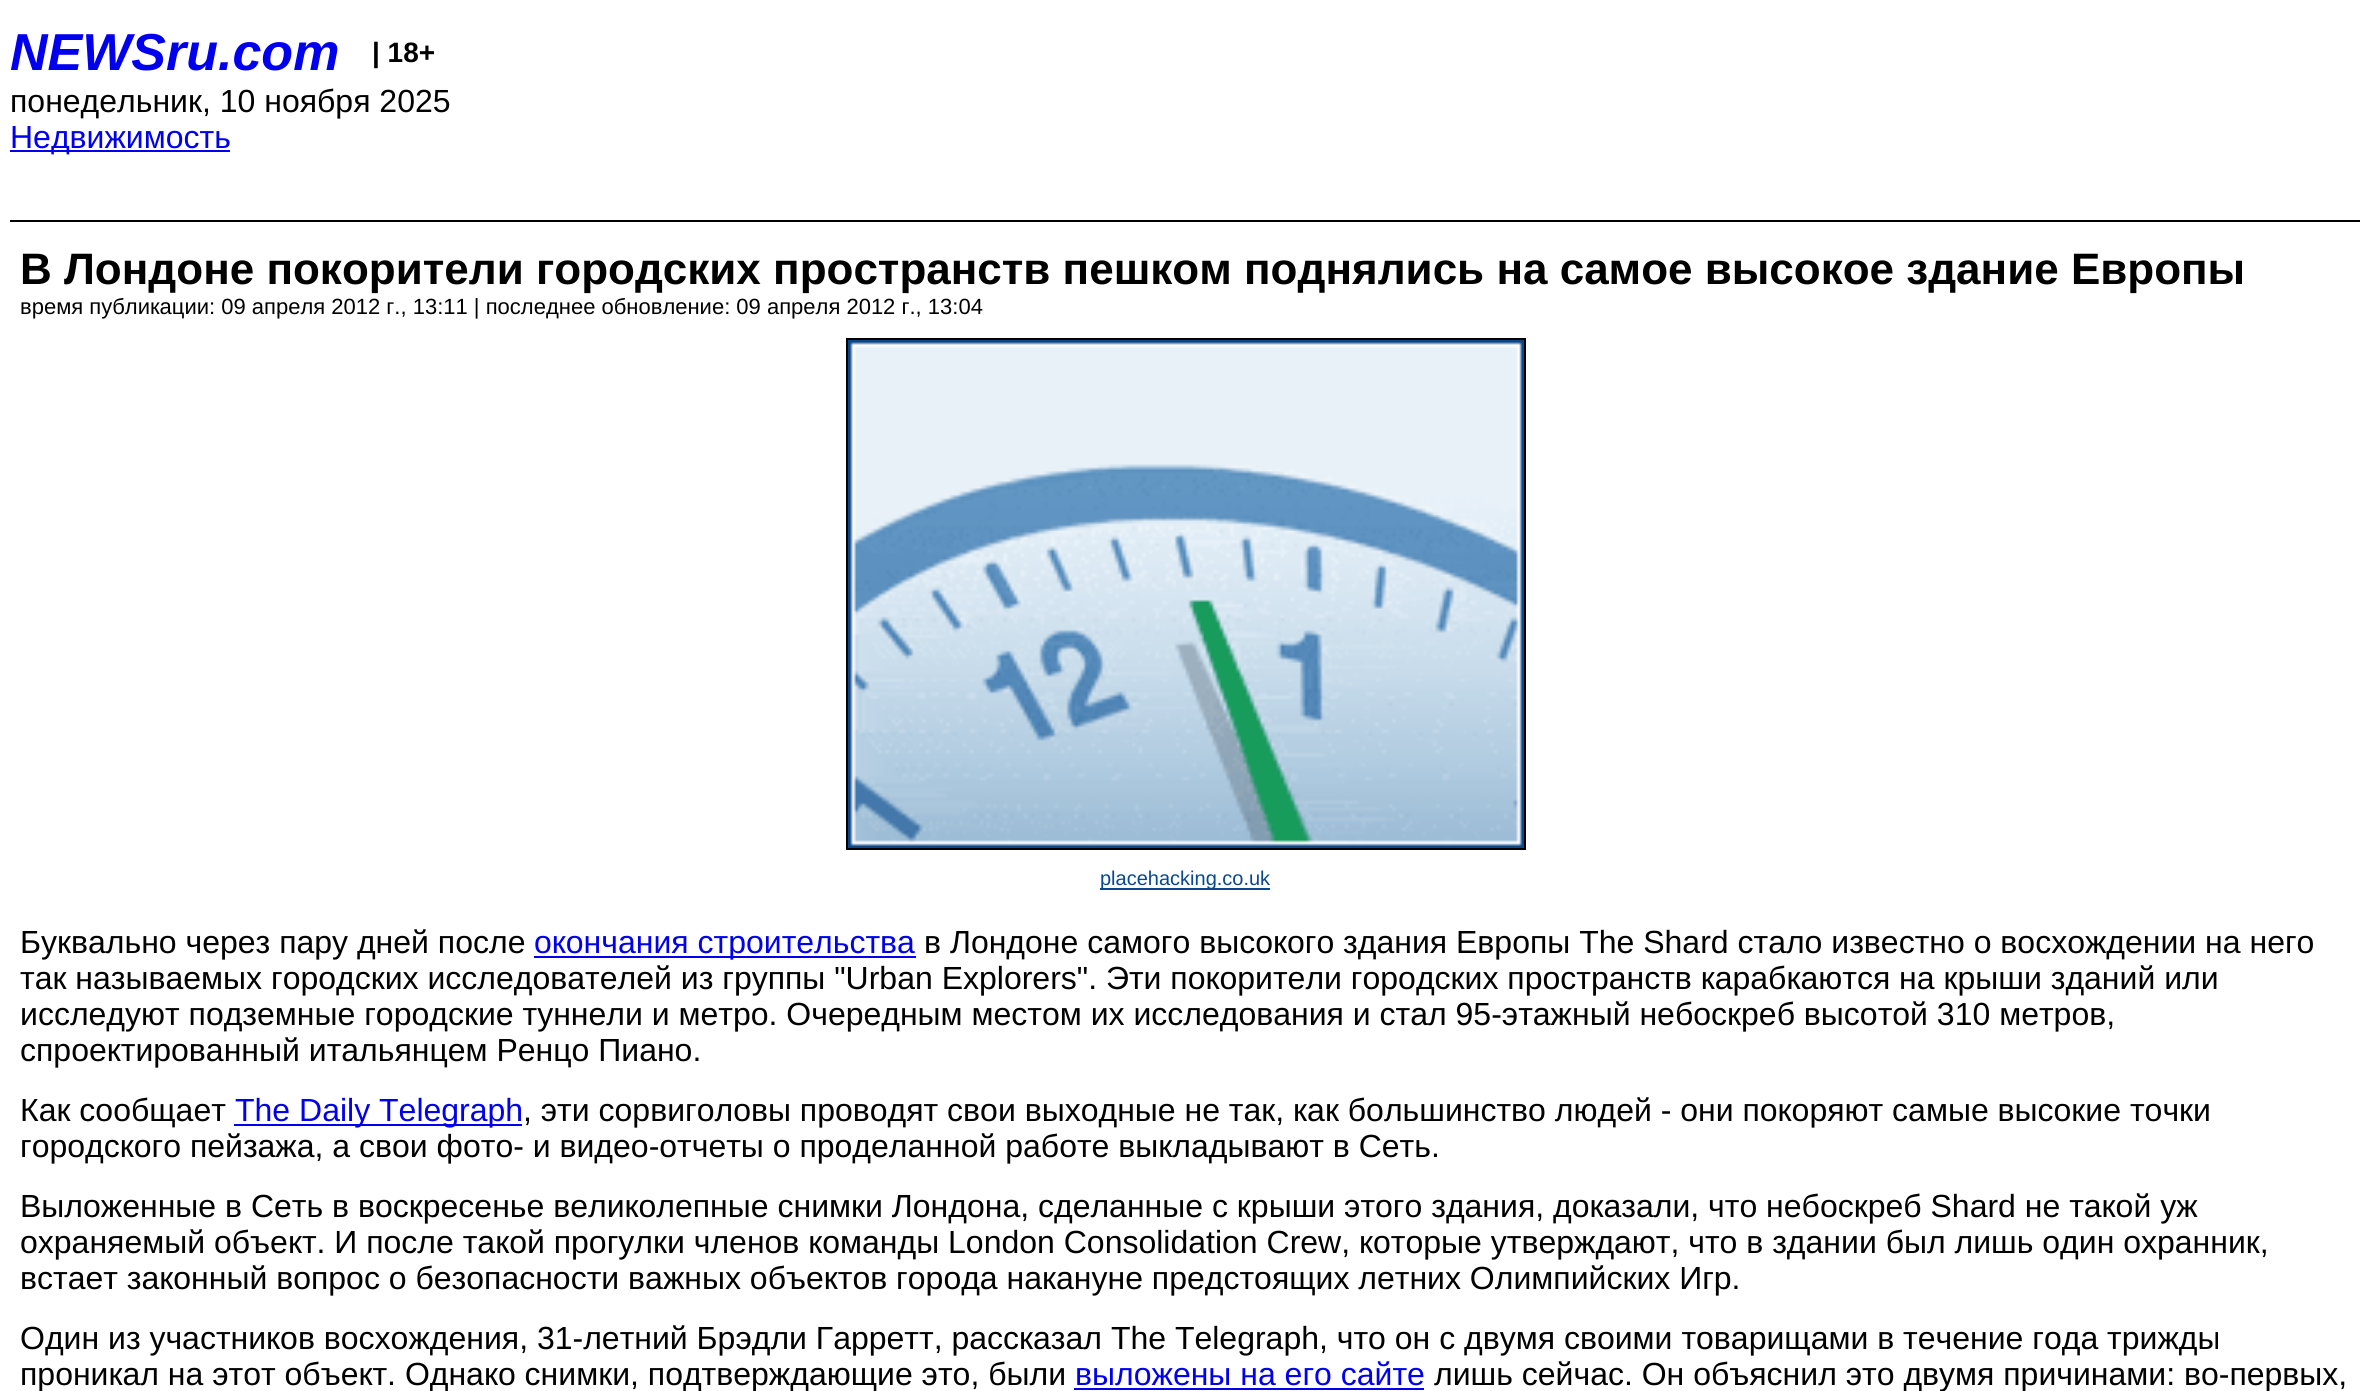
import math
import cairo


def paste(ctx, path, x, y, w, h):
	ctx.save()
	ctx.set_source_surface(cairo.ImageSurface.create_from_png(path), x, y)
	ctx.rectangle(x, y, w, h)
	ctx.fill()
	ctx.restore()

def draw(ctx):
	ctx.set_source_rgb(1, 1, 1)
	ctx.paint()
	ctx.set_source_rgb(0, 0, 0)
	ctx.rectangle(10, 220, 2350, 2)
	ctx.fill()
	ctx.select_font_face('Liberation Sans', cairo.FONT_SLANT_ITALIC, cairo.FONT_WEIGHT_BOLD)
	ctx.set_font_size(52)
	ctx.set_source_rgb(0, 0, 0.933)
	ctx.move_to(10, 70)
	ctx.show_text('NEWSru.com')
	ctx.select_font_face('Liberation Sans', cairo.FONT_SLANT_NORMAL, cairo.FONT_WEIGHT_BOLD)
	ctx.set_font_size(28)
	ctx.set_source_rgb(0, 0, 0)
	ctx.move_to(372, 62)
	ctx.show_text('| 18+')
	ctx.select_font_face('Liberation Sans')
	ctx.set_font_size(32)
	ctx.move_to(10, 112)
	ctx.show_text('понедельник, 10 ноября 2025')
	ctx.set_source_rgb(0, 0, 0.933)
	ctx.rectangle(10, 150, 220, 2)
	ctx.fill()
	ctx.move_to(10, 148)
	ctx.show_text('Недвижимость')
	ctx.select_font_face('Liberation Sans', cairo.FONT_SLANT_NORMAL, cairo.FONT_WEIGHT_BOLD)
	ctx.set_font_size(44)
	ctx.set_source_rgb(0, 0, 0)
	ctx.move_to(20, 284)
	ctx.show_text('В Лондоне покорители городских пространств пешком поднялись на самое высокое здание Европы')
	ctx.select_font_face('Liberation Sans')
	ctx.set_font_size(22)
	ctx.move_to(20, 314)
	ctx.show_text('время публикации: 09 апреля 2012 г., 13:11 | последнее обновление: 09 апреля 2012 г., 13:04')
	ctx.rectangle(847, 339, 678, 510)
	ctx.stroke()
	paste(ctx, 'media/1.png', 848, 340, 676, 508)
	ctx.set_source_rgb(0.035, 0.282, 0.561)
	ctx.rectangle(1100, 888, 170, 2)
	ctx.fill()
	ctx.set_font_size(20)
	ctx.move_to(1100, 885)
	ctx.show_text('placehacking.co.uk')
	ctx.set_font_size(32)
	ctx.set_source_rgb(0, 0, 0)
	ctx.move_to(20, 953)
	ctx.show_text('Буквально через пару дней после')
	ctx.set_source_rgb(0, 0, 0.933)
	ctx.rectangle(534, 956, 382, 2)
	ctx.fill()
	ctx.move_to(534, 953)
	ctx.show_text('окончания строительства')
	ctx.set_source_rgb(0, 0, 0)
	for x, y, s in [
		(924, 953, 'в Лондоне самого высокого здания Европы The Shard стало известно о восхождении на него'),
		(20, 989, 'так называемых городских исследователей из группы "Urban Explorers". Эти покорители городских пространств карабкаются на крыши зданий или'),
		(20, 1025, 'исследуют подземные городские туннели и метро. Очередным местом их исследования и стал 95-этажный небоскреб высотой 310 метров,'),
		(20, 1061, 'спроектированный итальянцем Ренцо Пиано.'),
		(20, 1121, 'Как сообщает'),
	]:
		ctx.move_to(x, y)
		ctx.show_text(s)
	ctx.set_source_rgb(0, 0, 0.933)
	ctx.rectangle(234, 1124, 288, 2)
	ctx.fill()
	ctx.move_to(235, 1121)
	ctx.show_text('The Daily Telegraph')
	ctx.set_source_rgb(0, 0, 0)
	for x, y, s in [
		(523, 1121, ', эти сорвиголовы проводят свои выходные не так, как большинство людей - они покоряют самые высокие точки'),
		(20, 1157, 'городского пейзажа, а свои фото- и видео-отчеты о проделанной работе выкладывают в Сеть.'),
		(20, 1217, 'Выложенные в Сеть в воскресенье великолепные снимки Лондона, сделанные с крыши этого здания, доказали, что небоскреб Shard не такой уж'),
		(20, 1253, 'охраняемый объект. И после такой прогулки членов команды London Consolidation Crew, которые утверждают, что в здании был лишь один охранник,'),
		(20, 1289, 'встает законный вопрос о безопасности важных объектов города накануне предстоящих летних Олимпийских Игр.'),
		(20, 1349, 'Один из участников восхождения, 31-летний Брэдли Гарретт, рассказал The Telegraph, что он с двумя своими товарищами в течение года трижды'),
		(20, 1385, 'проникал на этот объект. Однако снимки, подтверждающие это, были'),
	]:
		ctx.move_to(x, y)
		ctx.show_text(s)
	ctx.set_source_rgb(0, 0, 0.933)
	ctx.move_to(1075, 1385)
	ctx.show_text('выложены на его сайте')
	ctx.rectangle(1074, 1388, 350, 2)
	ctx.fill()
	ctx.set_source_rgb(0, 0, 0)
	ctx.move_to(1434, 1385)
	ctx.show_text('лишь сейчас. Он объяснил это двумя причинами: во-первых,')


surface = cairo.ImageSurface(cairo.FORMAT_RGB24, 2370, 1391)
ctx = cairo.Context(surface)
options = cairo.FontOptions()
options.set_hint_metrics(cairo.HINT_METRICS_OFF)
options.set_hint_style(cairo.HINT_STYLE_NONE)
ctx.set_font_options(options)
ctx.set_miter_limit(4)
draw(ctx)
surface.write_to_png('image.png')
